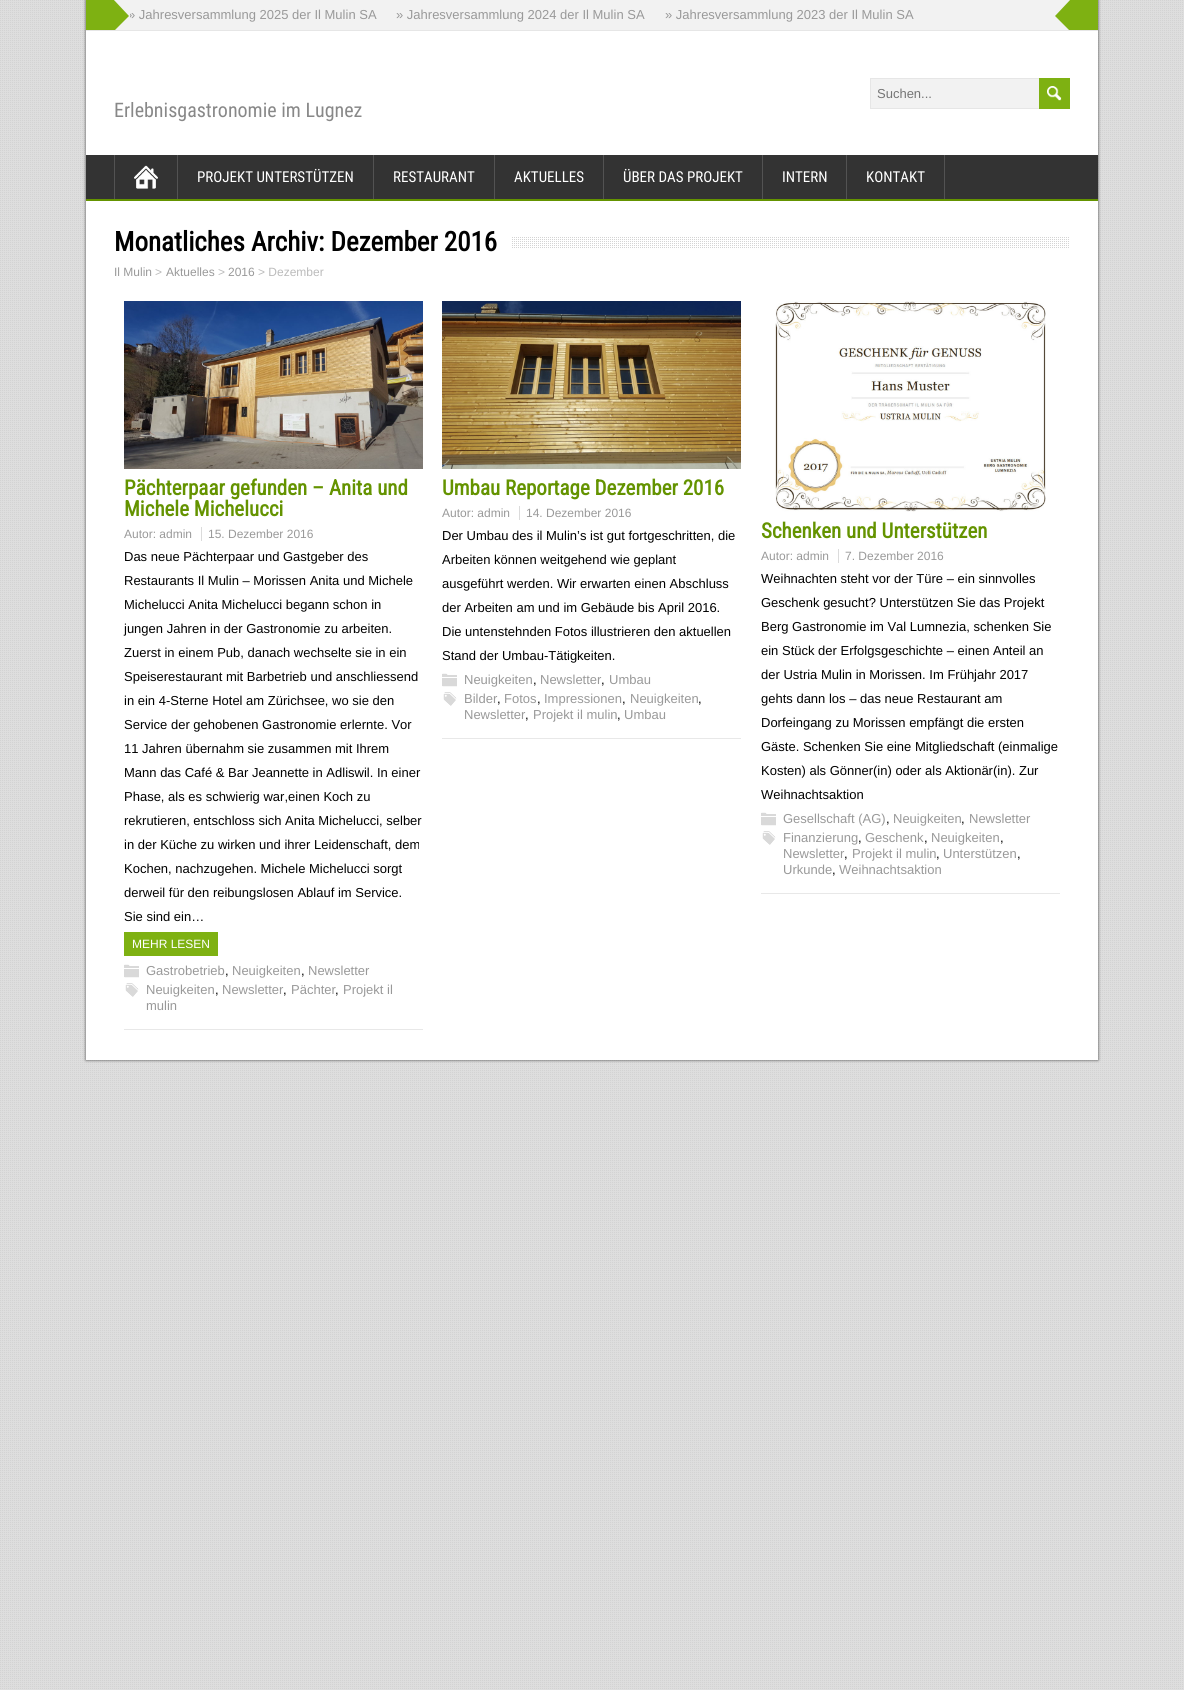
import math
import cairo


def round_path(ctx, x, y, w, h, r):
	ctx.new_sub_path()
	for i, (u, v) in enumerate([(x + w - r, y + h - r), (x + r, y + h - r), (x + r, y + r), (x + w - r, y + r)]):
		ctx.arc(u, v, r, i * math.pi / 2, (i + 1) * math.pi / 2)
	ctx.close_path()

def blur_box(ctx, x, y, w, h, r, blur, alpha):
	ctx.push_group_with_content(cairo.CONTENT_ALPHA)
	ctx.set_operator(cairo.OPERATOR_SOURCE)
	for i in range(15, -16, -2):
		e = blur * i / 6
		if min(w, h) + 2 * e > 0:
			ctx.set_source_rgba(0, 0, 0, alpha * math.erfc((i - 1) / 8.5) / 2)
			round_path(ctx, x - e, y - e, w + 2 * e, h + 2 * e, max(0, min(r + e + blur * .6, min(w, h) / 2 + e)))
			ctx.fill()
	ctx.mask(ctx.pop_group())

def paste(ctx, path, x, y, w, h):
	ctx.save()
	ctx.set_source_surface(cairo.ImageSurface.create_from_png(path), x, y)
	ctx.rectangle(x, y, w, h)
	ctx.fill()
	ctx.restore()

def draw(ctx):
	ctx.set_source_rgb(0.871, 0.871, 0.871)
	ctx.paint()
	paste(ctx, 'media/1.png', 0, 0, 1183, 1689)
	ctx.set_source_rgb(0.267, 0.267, 0.267)
	blur_box(ctx, 86, 0, 1012, 1060, 0, 1.5, 1)
	ctx.set_source_rgb(1, 1, 1)
	ctx.rectangle(86, 31, 1012, 1029)
	ctx.fill()
	ctx.set_source_rgb(0.494, 0.694, 0.071)
	ctx.rectangle(86, 0, 1012, 30)
	ctx.fill()
	ctx.set_source_rgb(0.902, 0.902, 0.902)
	ctx.rectangle(86, 30, 1012, 1)
	ctx.fill()
	ctx.set_source_rgb(0.949, 0.949, 0.949)
	ctx.rectangle(114, 0, 956, 30)
	ctx.fill()
	ctx.save()
	ctx.rectangle(114, 0, 956, 30)
	ctx.clip()
	ctx.set_source_rgb(0.494, 0.694, 0.071)
	ctx.new_path()
	ctx.move_to(113, -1)
	ctx.line_to(129, 16)
	ctx.line_to(92, 53)
	ctx.line_to(76, 36)
	ctx.close_path()
	ctx.fill()
	ctx.restore()
	ctx.save()
	ctx.rectangle(130, 0, 940, 30)
	ctx.clip()
	ctx.select_font_face('Liberation Sans')
	ctx.set_font_size(13)
	ctx.set_source_rgb(0.6, 0.6, 0.6)
	ctx.move_to(128, 19)
	ctx.show_text('» Jahresversammlung 2025 der Il Mulin SA')
	ctx.restore()
	ctx.select_font_face('Liberation Sans')
	ctx.set_font_size(13)
	ctx.set_source_rgb(0.6, 0.6, 0.6)
	ctx.move_to(396, 19)
	ctx.show_text('» Jahresversammlung 2024 der Il Mulin SA')
	ctx.move_to(665, 19)
	ctx.show_text('» Jahresversammlung 2023 der Il Mulin SA')
	ctx.save()
	ctx.rectangle(114, 0, 956, 30)
	ctx.clip()
	ctx.set_source_rgb(0.494, 0.694, 0.071)
	ctx.new_path()
	ctx.move_to(1108, 36)
	ctx.line_to(1092, 53)
	ctx.line_to(1055, 16)
	ctx.line_to(1071, -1)
	ctx.close_path()
	ctx.fill()
	ctx.restore()
	ctx.set_source_rgb(0.949, 0.949, 0.949)
	ctx.rectangle(871, 79, 168, 29)
	ctx.fill()
	ctx.rectangle(870.5, 78.5, 199, 30)
	ctx.set_source_rgb(0.902, 0.902, 0.902)
	ctx.set_line_width(1)
	ctx.stroke()
	ctx.set_source_rgb(0.459, 0.459, 0.459)
	ctx.move_to(877, 98)
	ctx.show_text('Suchen...')
	ctx.set_source_rgb(0.494, 0.694, 0.071)
	ctx.rectangle(1039, 78, 31, 31)
	ctx.fill()
	paste(ctx, 'media/2.png', 1047, 86, 15, 15)
	ctx.select_font_face('Roboto Condensed')
	ctx.set_font_size(20)
	ctx.set_source_rgb(0.533, 0.533, 0.533)
	ctx.move_to(114, 117)
	ctx.show_text('Erlebnisgastronomie im Lugnez')
	ctx.set_source_rgb(0.2, 0.2, 0.2)
	ctx.rectangle(86, 155, 1012, 44)
	ctx.fill()
	ctx.set_source_rgb(0.392, 0.576, 0)
	ctx.rectangle(86, 199, 1012, 2)
	ctx.fill()
	paste(ctx, 'media/3.png', 134, 165, 24, 24)
	ctx.set_source_rgb(0.325, 0.325, 0.325)
	ctx.rectangle(177, 155, 1, 44)
	ctx.rectangle(114, 155, 1, 44)
	ctx.rectangle(373, 155, 1, 44)
	ctx.fill()
	ctx.set_font_size(15)
	ctx.set_source_rgb(1, 1, 1)
	ctx.move_to(197, 182)
	ctx.show_text('PROJEKT UNTERSTÜTZEN')
	ctx.set_source_rgb(0.325, 0.325, 0.325)
	ctx.rectangle(494, 155, 1, 44)
	ctx.fill()
	ctx.set_source_rgb(1, 1, 1)
	ctx.move_to(393, 182)
	ctx.show_text('RESTAURANT')
	ctx.set_source_rgb(0.325, 0.325, 0.325)
	ctx.rectangle(603, 155, 1, 44)
	ctx.fill()
	ctx.set_source_rgb(1, 1, 1)
	ctx.move_to(514, 182)
	ctx.show_text('AKTUELLES')
	ctx.set_source_rgb(0.325, 0.325, 0.325)
	ctx.rectangle(762, 155, 1, 44)
	ctx.fill()
	ctx.set_source_rgb(1, 1, 1)
	ctx.move_to(623, 182)
	ctx.show_text('ÜBER DAS PROJEKT')
	ctx.set_source_rgb(0.325, 0.325, 0.325)
	ctx.rectangle(846, 155, 1, 44)
	ctx.fill()
	ctx.set_source_rgb(1, 1, 1)
	ctx.move_to(782, 182)
	ctx.show_text('INTERN')
	ctx.set_source_rgb(0.325, 0.325, 0.325)
	ctx.rectangle(944, 155, 1, 44)
	ctx.fill()
	ctx.set_source_rgb(1, 1, 1)
	ctx.move_to(866, 182)
	ctx.show_text('KONTAKT')
	paste(ctx, 'media/4.png', 512, 237, 557, 11)
	ctx.select_font_face('Roboto Condensed', cairo.FONT_SLANT_NORMAL, cairo.FONT_WEIGHT_BOLD)
	ctx.set_font_size(27)
	ctx.set_source_rgb(0, 0, 0)
	ctx.move_to(114, 251)
	ctx.show_text('Monatliches Archiv: Dezember 2016')
	ctx.select_font_face('Liberation Sans')
	ctx.set_font_size(12)
	ctx.set_source_rgb(0.6, 0.6, 0.6)
	ctx.move_to(114, 276)
	ctx.show_text('Il Mulin')
	ctx.set_source_rgb(0.733, 0.733, 0.733)
	ctx.move_to(155, 276)
	ctx.show_text('>')
	ctx.set_source_rgb(0.6, 0.6, 0.6)
	ctx.move_to(166, 276)
	ctx.show_text('Aktuelles')
	ctx.set_source_rgb(0.733, 0.733, 0.733)
	ctx.move_to(218, 276)
	ctx.show_text('>')
	ctx.set_source_rgb(0.6, 0.6, 0.6)
	ctx.move_to(228, 276)
	ctx.show_text('2016')
	ctx.set_source_rgb(0.733, 0.733, 0.733)
	ctx.move_to(258, 276)
	ctx.show_text('> Dezember')
	ctx.set_source_rgb(0.91, 0.91, 0.91)
	ctx.rectangle(124, 1029, 299, 1)
	ctx.fill()
	paste(ctx, 'media/5.png', 124, 301, 299, 168)
	ctx.select_font_face('Roboto Condensed', cairo.FONT_SLANT_NORMAL, cairo.FONT_WEIGHT_BOLD)
	ctx.set_font_size(21)
	ctx.set_source_rgb(0.392, 0.576, 0)
	ctx.move_to(124, 495)
	ctx.show_text('Pächterpaar gefunden – Anita und')
	ctx.move_to(124, 516)
	ctx.show_text('Michele Michelucci')
	ctx.select_font_face('Liberation Sans')
	ctx.set_font_size(12)
	ctx.set_source_rgb(0.6, 0.6, 0.6)
	ctx.move_to(124, 538)
	ctx.show_text('Autor: admin')
	ctx.move_to(208, 538)
	ctx.show_text('15. Dezember 2016')
	ctx.set_source_rgb(0.859, 0.859, 0.859)
	ctx.rectangle(201, 527, 1, 14)
	ctx.fill()
	ctx.set_font_size(13)
	ctx.set_source_rgb(0, 0, 0)
	for x, y, s in [
		(124, 561, 'Das neue Pächterpaar und Gastgeber des'),
		(124, 585, 'Restaurants Il Mulin – Morissen Anita und Michele'),
		(124, 609, 'Michelucci Anita Michelucci begann schon in'),
		(124, 633, 'jungen Jahren in der Gastronomie zu arbeiten.'),
		(124, 657, 'Zuerst in einem Pub, danach wechselte sie in ein'),
		(124, 681, 'Speiserestaurant mit Barbetrieb und anschliessend'),
		(124, 705, 'in ein 4-Sterne Hotel am Zürichsee, wo sie den'),
		(124, 729, 'Service der gehobenen Gastronomie erlernte. Vor'),
		(124, 753, '11 Jahren übernahm sie zusammen mit Ihrem'),
		(124, 777, 'Mann das Café & Bar Jeannette in Adliswil. In einer'),
		(124, 801, 'Phase, als es schwierig war,einen Koch zu'),
		(124, 825, 'rekrutieren, entschloss sich Anita Michelucci, selber'),
		(124, 849, 'in der Küche zu wirken und ihrer Leidenschaft, dem'),
		(124, 873, 'Kochen, nachzugehen. Michele Michelucci sorgt'),
		(124, 897, 'derweil für den reibungslosen Ablauf im Service.'),
		(124, 921, 'Sie sind ein…'),
	]:
		ctx.move_to(x, y)
		ctx.show_text(s)
	ctx.set_source_rgb(0.494, 0.694, 0.071)
	ctx.rectangle(124, 932, 94, 24)
	ctx.fill()
	ctx.set_font_size(12)
	ctx.set_source_rgb(1, 1, 1)
	ctx.move_to(132, 948)
	ctx.show_text('MEHR LESEN')
	paste(ctx, 'media/6.png', 124, 964, 15, 14)
	ctx.set_font_size(13)
	ctx.set_source_rgb(0.6, 0.6, 0.6)
	ctx.move_to(146, 975)
	ctx.show_text('Gastrobetrieb')
	ctx.set_source_rgb(0, 0, 0)
	ctx.move_to(225, 975)
	ctx.show_text(',')
	ctx.set_source_rgb(0.6, 0.6, 0.6)
	ctx.move_to(232, 975)
	ctx.show_text('Neuigkeiten')
	ctx.set_source_rgb(0, 0, 0)
	ctx.move_to(301, 975)
	ctx.show_text(',')
	ctx.set_source_rgb(0.6, 0.6, 0.6)
	ctx.move_to(308, 975)
	ctx.show_text('Newsletter')
	paste(ctx, 'media/7.png', 125, 983, 14, 14)
	ctx.move_to(146, 994)
	ctx.show_text('Neuigkeiten')
	ctx.set_source_rgb(0, 0, 0)
	ctx.move_to(215, 994)
	ctx.show_text(',')
	ctx.set_source_rgb(0.6, 0.6, 0.6)
	ctx.move_to(222, 994)
	ctx.show_text('Newsletter')
	ctx.set_source_rgb(0, 0, 0)
	ctx.move_to(283, 994)
	ctx.show_text(',')
	ctx.set_source_rgb(0.6, 0.6, 0.6)
	ctx.move_to(291, 994)
	ctx.show_text('Pächter')
	ctx.set_source_rgb(0, 0, 0)
	ctx.move_to(335, 994)
	ctx.show_text(',')
	ctx.set_source_rgb(0.6, 0.6, 0.6)
	ctx.move_to(343, 994)
	ctx.show_text('Projekt il')
	ctx.move_to(146, 1010)
	ctx.show_text('mulin')
	ctx.set_source_rgb(0.91, 0.91, 0.91)
	ctx.rectangle(442, 738, 299, 1)
	ctx.fill()
	paste(ctx, 'media/8.png', 442, 301, 299, 168)
	ctx.select_font_face('Roboto Condensed', cairo.FONT_SLANT_NORMAL, cairo.FONT_WEIGHT_BOLD)
	ctx.set_font_size(21)
	ctx.set_source_rgb(0.392, 0.576, 0)
	ctx.move_to(442, 495)
	ctx.show_text('Umbau Reportage Dezember 2016')
	ctx.select_font_face('Liberation Sans')
	ctx.set_font_size(12)
	ctx.set_source_rgb(0.6, 0.6, 0.6)
	ctx.move_to(442, 517)
	ctx.show_text('Autor: admin')
	ctx.move_to(526, 517)
	ctx.show_text('14. Dezember 2016')
	ctx.set_source_rgb(0.859, 0.859, 0.859)
	ctx.rectangle(519, 506, 1, 14)
	ctx.fill()
	ctx.set_font_size(13)
	ctx.set_source_rgb(0, 0, 0)
	for x, y, s in [
		(442, 540, 'Der Umbau des il Mulin’s ist gut fortgeschritten, die'),
		(442, 564, 'Arbeiten können weitgehend wie geplant'),
		(442, 588, 'ausgeführt werden. Wir erwarten einen Abschluss'),
		(442, 612, 'der Arbeiten am und im Gebäude bis April 2016.'),
		(442, 636, 'Die untenstehnden Fotos illustrieren den aktuellen'),
		(442, 660, 'Stand der Umbau-Tätigkeiten.'),
	]:
		ctx.move_to(x, y)
		ctx.show_text(s)
	paste(ctx, 'media/6.png', 442, 673, 15, 14)
	ctx.set_source_rgb(0.6, 0.6, 0.6)
	ctx.move_to(464, 684)
	ctx.show_text('Neuigkeiten')
	ctx.set_source_rgb(0, 0, 0)
	ctx.move_to(533, 684)
	ctx.show_text(',')
	ctx.set_source_rgb(0.6, 0.6, 0.6)
	ctx.move_to(540, 684)
	ctx.show_text('Newsletter')
	ctx.set_source_rgb(0, 0, 0)
	ctx.move_to(601, 684)
	ctx.show_text(',')
	ctx.set_source_rgb(0.6, 0.6, 0.6)
	ctx.move_to(609, 684)
	ctx.show_text('Umbau')
	paste(ctx, 'media/7.png', 443, 692, 14, 14)
	ctx.move_to(464, 703)
	ctx.show_text('Bilder')
	ctx.set_source_rgb(0, 0, 0)
	ctx.move_to(497, 703)
	ctx.show_text(',')
	ctx.set_source_rgb(0.6, 0.6, 0.6)
	ctx.move_to(504, 703)
	ctx.show_text('Fotos')
	ctx.set_source_rgb(0, 0, 0)
	ctx.move_to(537, 703)
	ctx.show_text(',')
	ctx.set_source_rgb(0.6, 0.6, 0.6)
	ctx.move_to(544, 703)
	ctx.show_text('Impressionen')
	ctx.set_source_rgb(0, 0, 0)
	ctx.move_to(622, 703)
	ctx.show_text(',')
	ctx.set_source_rgb(0.6, 0.6, 0.6)
	ctx.move_to(630, 703)
	ctx.show_text('Neuigkeiten')
	ctx.set_source_rgb(0, 0, 0)
	ctx.move_to(698, 703)
	ctx.show_text(',')
	ctx.set_source_rgb(0.6, 0.6, 0.6)
	ctx.move_to(464, 719)
	ctx.show_text('Newsletter')
	ctx.set_source_rgb(0, 0, 0)
	ctx.move_to(525, 719)
	ctx.show_text(',')
	ctx.set_source_rgb(0.6, 0.6, 0.6)
	ctx.move_to(533, 719)
	ctx.show_text('Projekt il mulin')
	ctx.set_source_rgb(0, 0, 0)
	ctx.move_to(617, 719)
	ctx.show_text(',')
	ctx.set_source_rgb(0.6, 0.6, 0.6)
	ctx.move_to(624, 719)
	ctx.show_text('Umbau')
	ctx.set_source_rgb(0.91, 0.91, 0.91)
	ctx.rectangle(761, 893, 299, 1)
	ctx.fill()
	paste(ctx, 'media/9.png', 775, 301, 271, 211)
	ctx.select_font_face('Roboto Condensed', cairo.FONT_SLANT_NORMAL, cairo.FONT_WEIGHT_BOLD)
	ctx.set_font_size(21)
	ctx.set_source_rgb(0.392, 0.576, 0)
	ctx.move_to(761, 538)
	ctx.show_text('Schenken und Unterstützen')
	ctx.select_font_face('Liberation Sans')
	ctx.set_font_size(12)
	ctx.set_source_rgb(0.6, 0.6, 0.6)
	ctx.move_to(761, 560)
	ctx.show_text('Autor: admin')
	ctx.move_to(845, 560)
	ctx.show_text('7. Dezember 2016')
	ctx.set_source_rgb(0.859, 0.859, 0.859)
	ctx.rectangle(838, 549, 1, 14)
	ctx.fill()
	ctx.set_font_size(13)
	ctx.set_source_rgb(0, 0, 0)
	for x, y, s in [
		(761, 583, 'Weihnachten steht vor der Türe – ein sinnvolles'),
		(761, 607, 'Geschenk gesucht? Unterstützen Sie das Projekt'),
		(761, 631, 'Berg Gastronomie im Val Lumnezia, schenken Sie'),
		(761, 655, 'ein Stück der Erfolgsgeschichte – einen Anteil an'),
		(761, 679, 'der Ustria Mulin in Morissen. Im Frühjahr 2017'),
		(761, 703, 'gehts dann los – das neue Restaurant am'),
		(761, 727, 'Dorfeingang zu Morissen empfängt die ersten'),
		(761, 751, 'Gäste. Schenken Sie eine Mitgliedschaft (einmalige'),
		(761, 775, 'Kosten) als Gönner(in) oder als Aktionär(in). Zur'),
		(761, 799, 'Weihnachtsaktion'),
	]:
		ctx.move_to(x, y)
		ctx.show_text(s)
	paste(ctx, 'media/6.png', 761, 812, 15, 14)
	ctx.set_source_rgb(0.6, 0.6, 0.6)
	ctx.move_to(783, 823)
	ctx.show_text('Gesellschaft (AG)')
	ctx.set_source_rgb(0, 0, 0)
	ctx.move_to(886, 823)
	ctx.show_text(',')
	ctx.set_source_rgb(0.6, 0.6, 0.6)
	ctx.move_to(893, 823)
	ctx.show_text('Neuigkeiten')
	ctx.set_source_rgb(0, 0, 0)
	ctx.move_to(961, 823)
	ctx.show_text(',')
	ctx.set_source_rgb(0.6, 0.6, 0.6)
	ctx.move_to(969, 823)
	ctx.show_text('Newsletter')
	paste(ctx, 'media/7.png', 762, 831, 14, 14)
	ctx.move_to(783, 842)
	ctx.show_text('Finanzierung')
	ctx.set_source_rgb(0, 0, 0)
	ctx.move_to(858, 842)
	ctx.show_text(',')
	ctx.set_source_rgb(0.6, 0.6, 0.6)
	ctx.move_to(865, 842)
	ctx.show_text('Geschenk')
	ctx.set_source_rgb(0, 0, 0)
	ctx.move_to(924, 842)
	ctx.show_text(',')
	ctx.set_source_rgb(0.6, 0.6, 0.6)
	ctx.move_to(931, 842)
	ctx.show_text('Neuigkeiten')
	ctx.set_source_rgb(0, 0, 0)
	ctx.move_to(1000, 842)
	ctx.show_text(',')
	ctx.set_source_rgb(0.6, 0.6, 0.6)
	ctx.move_to(783, 858)
	ctx.show_text('Newsletter')
	ctx.set_source_rgb(0, 0, 0)
	ctx.move_to(844, 858)
	ctx.show_text(',')
	ctx.set_source_rgb(0.6, 0.6, 0.6)
	ctx.move_to(852, 858)
	ctx.show_text('Projekt il mulin')
	ctx.set_source_rgb(0, 0, 0)
	ctx.move_to(936, 858)
	ctx.show_text(',')
	ctx.set_source_rgb(0.6, 0.6, 0.6)
	ctx.move_to(943, 858)
	ctx.show_text('Unterstützen')
	ctx.set_source_rgb(0, 0, 0)
	ctx.move_to(1017, 858)
	ctx.show_text(',')
	ctx.set_source_rgb(0.6, 0.6, 0.6)
	ctx.move_to(783, 874)
	ctx.show_text('Urkunde')
	ctx.set_source_rgb(0, 0, 0)
	ctx.move_to(832, 874)
	ctx.show_text(',')
	ctx.set_source_rgb(0.6, 0.6, 0.6)
	ctx.move_to(839, 874)
	ctx.show_text('Weihnachtsaktion')


surface = cairo.ImageSurface(cairo.FORMAT_RGB24, 1184, 1690)
ctx = cairo.Context(surface)
options = cairo.FontOptions()
options.set_hint_metrics(cairo.HINT_METRICS_OFF)
options.set_hint_style(cairo.HINT_STYLE_NONE)
ctx.set_font_options(options)
ctx.set_miter_limit(4)
draw(ctx)
surface.write_to_png('image.png')
